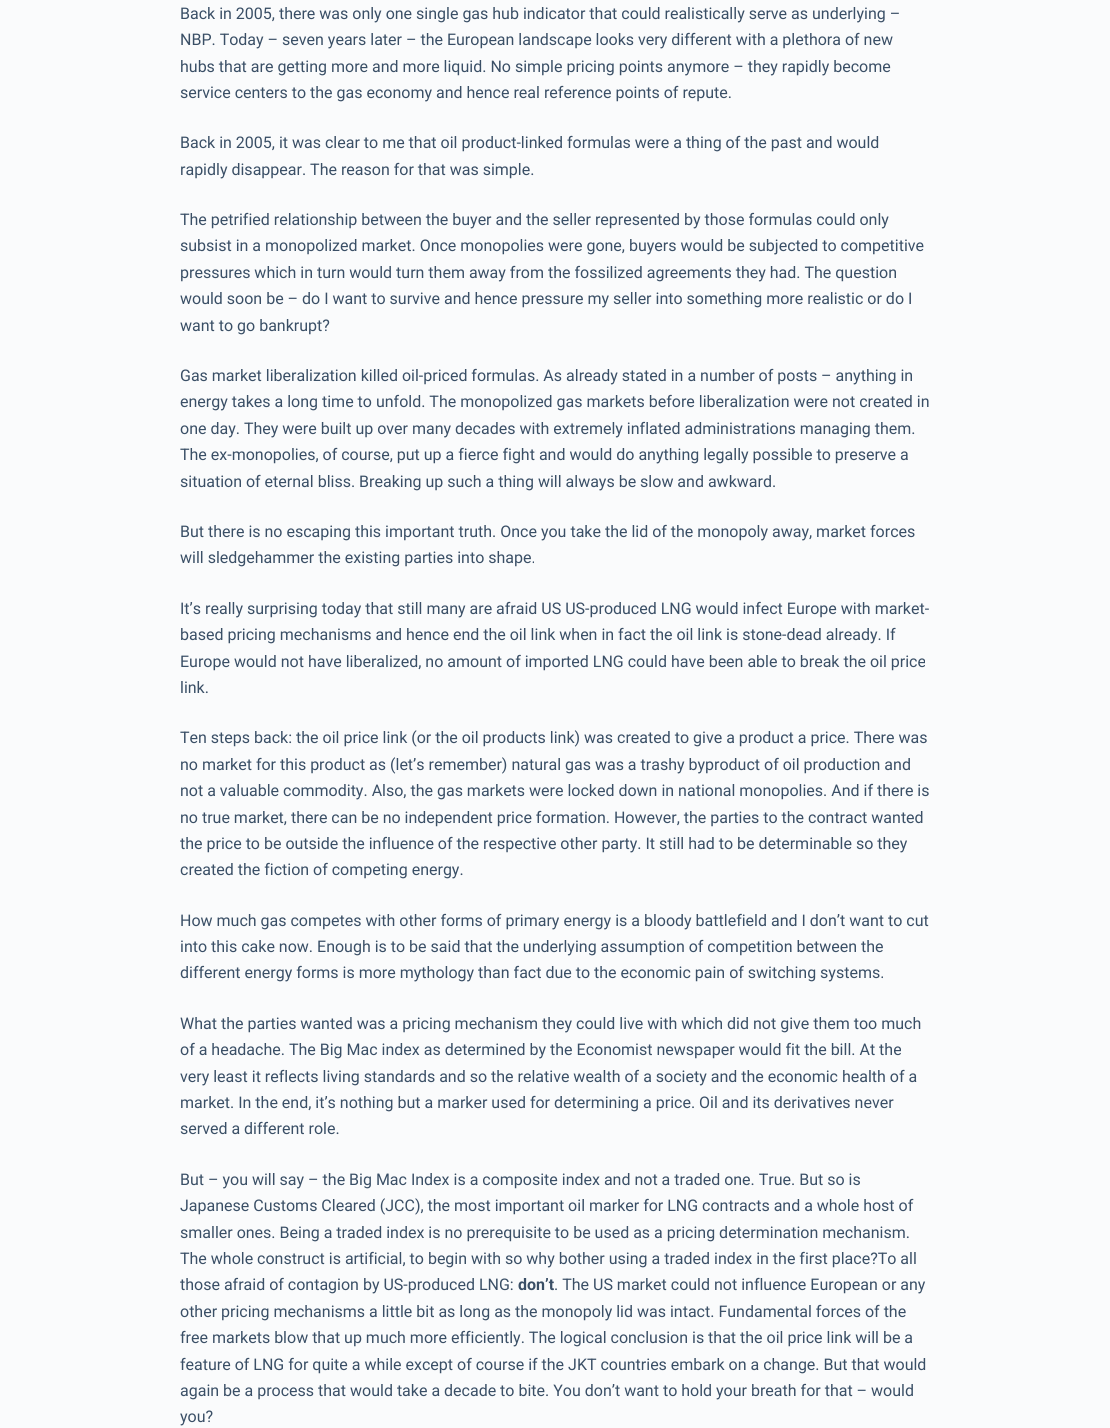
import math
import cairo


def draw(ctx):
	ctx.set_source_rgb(0.98, 0.984, 0.988)
	ctx.paint()
	ctx.select_font_face('Roboto')
	ctx.set_font_size(16)
	ctx.set_source_rgb(0.227, 0.31, 0.4)
	for x, y, s in [
		(180, 19, 'Back in 2005, there was only one single gas hub indicator that could realistically serve as underlying –'),
		(180, 45, 'NBP. Today – seven years later – the European landscape looks very different with a plethora of new'),
		(180, 72, 'hubs that are getting more and more liquid. No simple pricing points anymore – they rapidly become'),
		(180, 98, 'service centers to the gas economy and hence real reference points of repute.'),
		(180, 148, 'Back in 2005, it was clear to me that oil product-linked formulas were a thing of the past and would'),
		(180, 175, 'rapidly disappear. The reason for that was simple.'),
		(180, 225, 'The petrified relationship between the buyer and the seller represented by those formulas could only'),
		(180, 251, 'subsist in a monopolized market. Once monopolies were gone, buyers would be subjected to competitive'),
		(180, 278, 'pressures which in turn would turn them away from the fossilized agreements they had. The question'),
		(180, 304, 'would soon be – do I want to survive and hence pressure my seller into something more realistic or do I'),
		(180, 331, 'want to go bankrupt?'),
		(180, 381, 'Gas market liberalization killed oil-priced formulas. As already stated in a number of posts – anything in'),
		(180, 407, 'energy takes a long time to unfold. The monopolized gas markets before liberalization were not created in'),
		(180, 434, 'one day. They were built up over many decades with extremely inflated administrations managing them.'),
		(180, 460, 'The ex-monopolies, of course, put up a fierce fight and would do anything legally possible to preserve a'),
		(180, 487, 'situation of eternal bliss. Breaking up such a thing will always be slow and awkward.'),
		(180, 537, 'But there is no escaping this important truth. Once you take the lid of the monopoly away, market forces'),
		(180, 563, 'will sledgehammer the existing parties into shape.'),
		(180, 614, 'It’s really surprising today that still many are afraid US US-produced LNG would infect Europe with market-'),
		(180, 640, 'based pricing mechanisms and hence end the oil link when in fact the oil link is stone-dead already. If'),
		(180, 667, 'Europe would not have liberalized, no amount of imported LNG could have been able to break the oil price'),
		(180, 693, 'link.'),
		(180, 743, 'Ten steps back: the oil price link (or the oil products link) was created to give a product a price. There was'),
		(180, 770, 'no market for this product as (let’s remember) natural gas was a trashy byproduct of oil production and'),
		(180, 796, 'not a valuable commodity. Also, the gas markets were locked down in national monopolies. And if there is'),
		(180, 823, 'no true market, there can be no independent price formation. However, the parties to the contract wanted'),
		(180, 849, 'the price to be outside the influence of the respective other party. It still had to be determinable so they'),
		(180, 875, 'created the fiction of competing energy.'),
		(180, 926, 'How much gas competes with other forms of primary energy is a bloody battlefield and I don’t want to cut'),
		(180, 952, 'into this cake now. Enough is to be said that the underlying assumption of competition between the'),
		(180, 978, 'different energy forms is more mythology than fact due to the economic pain of switching systems.'),
		(180, 1029, 'What the parties wanted was a pricing mechanism they could live with which did not give them too much'),
		(180, 1055, 'of a headache. The Big Mac index as determined by the Economist newspaper would fit the bill. At the'),
		(180, 1082, 'very least it reflects living standards and so the relative wealth of a society and the economic health of a'),
		(180, 1108, 'market. In the end, it’s nothing but a marker used for determining a price. Oil and its derivatives never'),
		(180, 1134, 'served a different role.'),
		(180, 1185, 'But – you will say – the Big Mac Index is a composite index and not a traded one. True. But so is'),
		(180, 1211, 'Japanese Customs Cleared (JCC), the most important oil marker for LNG contracts and a whole host of'),
		(180, 1238, 'smaller ones. Being a traded index is no prerequisite to be used as a pricing determination mechanism.'),
		(180, 1264, 'The whole construct is artificial, to begin with so why bother using a traded index in the first place?To all'),
		(180, 1290, 'those afraid of contagion by US-produced LNG:'),
	]:
		ctx.move_to(x, y)
		ctx.show_text(s)
	ctx.select_font_face('Roboto', cairo.FONT_SLANT_NORMAL, cairo.FONT_WEIGHT_BOLD)
	ctx.move_to(518, 1290)
	ctx.show_text('don’t')
	ctx.select_font_face('Roboto')
	for x, y, s in [
		(554, 1290, '. The US market could not influence European or any'),
		(180, 1317, 'other pricing mechanisms a little bit as long as the monopoly lid was intact. Fundamental forces of the'),
		(180, 1343, 'free markets blow that up much more efficiently. The logical conclusion is that the oil price link will be a'),
		(180, 1370, 'feature of LNG for quite a while except of course if the JKT countries embark on a change. But that would'),
		(180, 1396, 'again be a process that would take a decade to bite. You don’t want to hold your breath for that – would'),
		(180, 1422, 'you?'),
	]:
		ctx.move_to(x, y)
		ctx.show_text(s)


surface = cairo.ImageSurface(cairo.FORMAT_RGB24, 1110, 1428)
ctx = cairo.Context(surface)
options = cairo.FontOptions()
options.set_hint_metrics(cairo.HINT_METRICS_OFF)
options.set_hint_style(cairo.HINT_STYLE_NONE)
ctx.set_font_options(options)
ctx.set_miter_limit(4)
draw(ctx)
surface.write_to_png('image.png')
